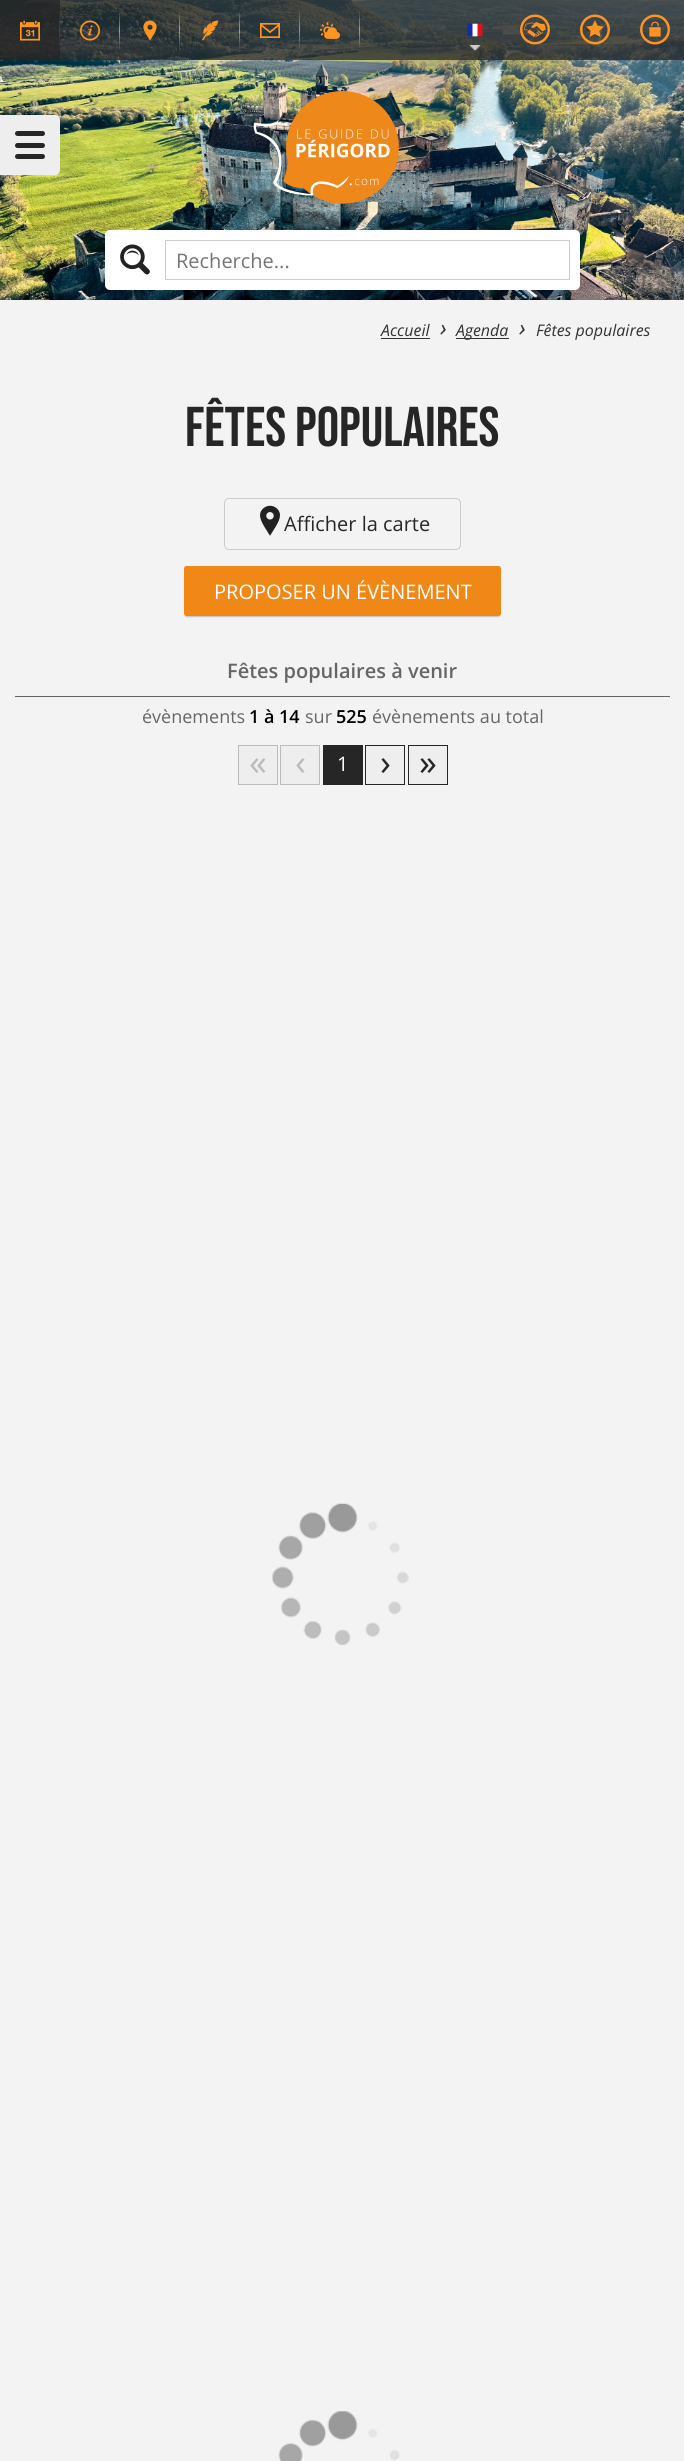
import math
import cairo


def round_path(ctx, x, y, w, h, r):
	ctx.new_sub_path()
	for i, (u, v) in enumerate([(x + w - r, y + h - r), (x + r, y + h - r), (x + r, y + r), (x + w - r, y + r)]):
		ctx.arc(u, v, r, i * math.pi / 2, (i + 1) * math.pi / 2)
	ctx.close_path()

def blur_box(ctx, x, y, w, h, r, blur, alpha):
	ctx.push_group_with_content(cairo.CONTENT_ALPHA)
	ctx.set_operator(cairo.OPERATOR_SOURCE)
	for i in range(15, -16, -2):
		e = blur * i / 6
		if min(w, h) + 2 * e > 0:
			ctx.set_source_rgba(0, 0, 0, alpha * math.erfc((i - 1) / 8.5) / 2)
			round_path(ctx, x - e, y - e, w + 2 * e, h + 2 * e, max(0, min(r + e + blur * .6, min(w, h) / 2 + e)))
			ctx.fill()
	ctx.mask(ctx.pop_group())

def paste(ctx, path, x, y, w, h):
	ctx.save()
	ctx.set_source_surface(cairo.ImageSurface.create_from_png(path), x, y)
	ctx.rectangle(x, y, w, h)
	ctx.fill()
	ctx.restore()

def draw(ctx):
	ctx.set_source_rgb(0.953, 0.953, 0.953)
	ctx.paint()
	paste(ctx, 'media/1.png', 0, 0, 684, 300)
	ctx.set_source_rgba(0.149, 0.149, 0.149, 0.75)
	ctx.rectangle(0, 0, 684, 60)
	ctx.fill()
	gradient = cairo.LinearGradient(59, 10, 59, 50)
	gradient.add_color_stop_rgba(0, 1, 1, 1, 0)
	gradient.add_color_stop_rgba(0.5, 1, 1, 1, 0.5)
	gradient.add_color_stop_rgba(1, 1, 1, 1, 0)
	ctx.set_source(gradient)
	ctx.rectangle(59, 10, 1, 40)
	ctx.fill()
	ctx.set_source_rgba(0.149, 0.149, 0.149, 0.75)
	ctx.rectangle(0, 0, 60, 60)
	ctx.fill()
	paste(ctx, 'media/2.png', 20, 20, 20, 21)
	paste(ctx, 'media/3.png', 80, 20, 20, 21)
	gradient = cairo.LinearGradient(119, 10, 119, 50)
	gradient.add_color_stop_rgba(0, 1, 1, 1, 0)
	gradient.add_color_stop_rgba(0.5, 1, 1, 1, 0.5)
	gradient.add_color_stop_rgba(1, 1, 1, 1, 0)
	ctx.set_source(gradient)
	ctx.rectangle(119, 10, 1, 40)
	ctx.fill()
	paste(ctx, 'media/4.png', 143, 20, 14, 21)
	gradient = cairo.LinearGradient(179, 10, 179, 50)
	gradient.add_color_stop_rgba(0, 1, 1, 1, 0)
	gradient.add_color_stop_rgba(0.5, 1, 1, 1, 0.5)
	gradient.add_color_stop_rgba(1, 1, 1, 1, 0)
	ctx.set_source(gradient)
	ctx.rectangle(179, 10, 1, 40)
	ctx.fill()
	paste(ctx, 'media/5.png', 201, 20, 18, 21)
	gradient = cairo.LinearGradient(239, 10, 239, 50)
	gradient.add_color_stop_rgba(0, 1, 1, 1, 0)
	gradient.add_color_stop_rgba(0.5, 1, 1, 1, 0.5)
	gradient.add_color_stop_rgba(1, 1, 1, 1, 0)
	ctx.set_source(gradient)
	ctx.rectangle(239, 10, 1, 40)
	ctx.fill()
	paste(ctx, 'media/6.png', 260, 23, 20, 15)
	gradient = cairo.LinearGradient(299, 10, 299, 50)
	gradient.add_color_stop_rgba(0, 1, 1, 1, 0)
	gradient.add_color_stop_rgba(0.5, 1, 1, 1, 0.5)
	gradient.add_color_stop_rgba(1, 1, 1, 1, 0)
	ctx.set_source(gradient)
	ctx.rectangle(299, 10, 1, 40)
	ctx.fill()
	paste(ctx, 'media/7.png', 320, 22, 20, 17)
	gradient = cairo.LinearGradient(359, 10, 359, 50)
	gradient.add_color_stop_rgba(0, 1, 1, 1, 0)
	gradient.add_color_stop_rgba(0.5, 1, 1, 1, 0.5)
	gradient.add_color_stop_rgba(1, 1, 1, 1, 0)
	ctx.set_source(gradient)
	ctx.rectangle(359, 10, 1, 40)
	ctx.fill()
	paste(ctx, 'media/8.png', 469, 45, 12, 6)
	paste(ctx, 'media/9.png', 467, 23, 16, 14)
	paste(ctx, 'media/10.png', 520, 14, 30, 31)
	paste(ctx, 'media/11.png', 580, 14, 30, 31)
	paste(ctx, 'media/12.png', 640, 14, 30, 31)
	ctx.set_source_rgb(0.933, 0.933, 0.933)
	ctx.new_path()
	ctx.move_to(0, 115)
	ctx.line_to(55, 115)
	ctx.curve_to(58, 115, 60, 117, 60, 120)
	ctx.line_to(60, 170)
	ctx.curve_to(60, 173, 58, 175, 55, 175)
	ctx.line_to(0, 175)
	ctx.close_path()
	ctx.fill()
	ctx.set_source_rgb(0.149, 0.149, 0.149)
	round_path(ctx, 15, 131, 30, 5, 2.5)
	ctx.fill()
	round_path(ctx, 15, 143, 30, 5, 2.5)
	ctx.fill()
	round_path(ctx, 15, 154, 30, 5, 2.5)
	ctx.fill()
	paste(ctx, 'media/13.png', 253, 91, 146, 113)
	ctx.set_source_rgb(1, 1, 1)
	round_path(ctx, 105, 230, 475, 60, 5)
	ctx.fill()
	paste(ctx, 'media/14.png', 120, 244, 30, 31)
	ctx.rectangle(165.5, 240.5, 404, 39)
	ctx.set_source_rgb(0.8, 0.8, 0.8)
	ctx.set_line_width(1)
	ctx.stroke()
	ctx.select_font_face('Open Sans')
	ctx.set_font_size(20)
	ctx.set_source_rgb(0.459, 0.459, 0.459)
	ctx.move_to(176, 268)
	ctx.show_text('Recherche...')
	ctx.select_font_face('Open Sans', cairo.FONT_SLANT_ITALIC)
	ctx.set_font_size(16)
	ctx.set_source_rgb(0.2, 0.2, 0.2)
	ctx.move_to(381, 336)
	ctx.show_text('Accueil')
	ctx.rectangle(381, 338, 49, 1)
	ctx.fill()
	ctx.set_font_size(24)
	ctx.move_to(440, 336)
	ctx.show_text('›')
	ctx.rectangle(456, 338, 53, 1)
	ctx.fill()
	ctx.set_font_size(16)
	ctx.move_to(456, 336)
	ctx.show_text('Agenda')
	ctx.set_font_size(24)
	ctx.move_to(519, 336)
	ctx.show_text('›')
	ctx.set_font_size(16)
	ctx.move_to(536, 336)
	ctx.show_text('Fêtes populaires')
	ctx.select_font_face('Bebas Neue')
	ctx.set_font_size(56)
	ctx.set_source_rgb(0.149, 0.149, 0.149)
	ctx.move_to(185, 446)
	ctx.show_text('Fêtes populaires')
	round_path(ctx, 224.5, 498.5, 236, 51, 4.5)
	ctx.set_source_rgb(0.8, 0.8, 0.8)
	ctx.stroke()
	paste(ctx, 'media/15.png', 260, 505, 20, 31)
	ctx.select_font_face('Open Sans')
	ctx.set_font_size(20)
	ctx.set_source_rgb(0.149, 0.149, 0.149)
	ctx.move_to(284, 531)
	ctx.show_text('Afficher la carte')
	ctx.set_source_rgb(0, 0, 0)
	blur_box(ctx, 186, 571, 313, 45, 0, 1, 0.5)
	ctx.set_source_rgb(0.937, 0.533, 0.09)
	round_path(ctx, 184, 566, 317, 50, 2.5)
	ctx.fill()
	ctx.set_source_rgb(1, 1, 1)
	ctx.move_to(214, 599)
	ctx.show_text('PROPOSER UN ÉVÈNEMENT')
	ctx.set_source_rgb(0.4, 0.4, 0.4)
	ctx.rectangle(15, 696, 655, 1)
	ctx.fill()
	ctx.select_font_face('Open Sans SemiBold')
	ctx.move_to(227, 678)
	ctx.show_text('Fêtes populaires à venir')
	ctx.select_font_face('Open Sans')
	ctx.set_font_size(18)
	ctx.move_to(142, 723)
	ctx.show_text('évènements')
	ctx.select_font_face('Open Sans SemiBold')
	ctx.set_source_rgb(0, 0, 0)
	ctx.move_to(249, 723)
	ctx.show_text('1 à 14')
	ctx.select_font_face('Open Sans')
	ctx.set_source_rgb(0.4, 0.4, 0.4)
	ctx.move_to(305, 723)
	ctx.show_text('sur')
	ctx.select_font_face('Open Sans SemiBold')
	ctx.set_source_rgb(0, 0, 0)
	ctx.move_to(336, 723)
	ctx.show_text('525')
	ctx.select_font_face('Open Sans')
	ctx.set_source_rgb(0.4, 0.4, 0.4)
	ctx.move_to(372, 723)
	ctx.show_text('évènements au total')
	ctx.set_source_rgb(0.933, 0.933, 0.933)
	ctx.rectangle(238.5, 745.5, 39, 39)
	ctx.fill_preserve()
	ctx.set_source_rgb(0.733, 0.733, 0.733)
	ctx.stroke()
	ctx.set_font_size(36)
	ctx.move_to(249, 775)
	ctx.show_text('«')
	ctx.set_source_rgb(0.933, 0.933, 0.933)
	ctx.rectangle(280.5, 745.5, 39, 39)
	ctx.fill_preserve()
	ctx.set_source_rgb(0.733, 0.733, 0.733)
	ctx.stroke()
	ctx.move_to(295, 775)
	ctx.show_text('‹')
	ctx.set_source_rgb(0.149, 0.149, 0.149)
	ctx.rectangle(323, 745, 40, 40)
	ctx.fill()
	ctx.set_font_size(20)
	ctx.set_source_rgb(1, 1, 1)
	ctx.move_to(337, 771)
	ctx.show_text('1')
	ctx.set_source_rgb(0.933, 0.933, 0.933)
	ctx.rectangle(365.5, 745.5, 39, 39)
	ctx.fill_preserve()
	ctx.set_source_rgb(0.149, 0.149, 0.149)
	ctx.stroke()
	ctx.set_font_size(36)
	ctx.move_to(380, 775)
	ctx.show_text('›')
	ctx.set_source_rgb(0.933, 0.933, 0.933)
	ctx.rectangle(408.5, 745.5, 39, 39)
	ctx.fill_preserve()
	ctx.set_source_rgb(0.149, 0.149, 0.149)
	ctx.stroke()
	ctx.move_to(419, 775)
	ctx.show_text('»')
	paste(ctx, 'media/16.png', 272, 1503, 137, 143)
	paste(ctx, 'media/17.png', 278, 2411, 122, 50)


surface = cairo.ImageSurface(cairo.FORMAT_RGB24, 684, 2461)
ctx = cairo.Context(surface)
options = cairo.FontOptions()
options.set_hint_metrics(cairo.HINT_METRICS_OFF)
options.set_hint_style(cairo.HINT_STYLE_NONE)
ctx.set_font_options(options)
ctx.set_miter_limit(4)
draw(ctx)
surface.write_to_png('image.png')
